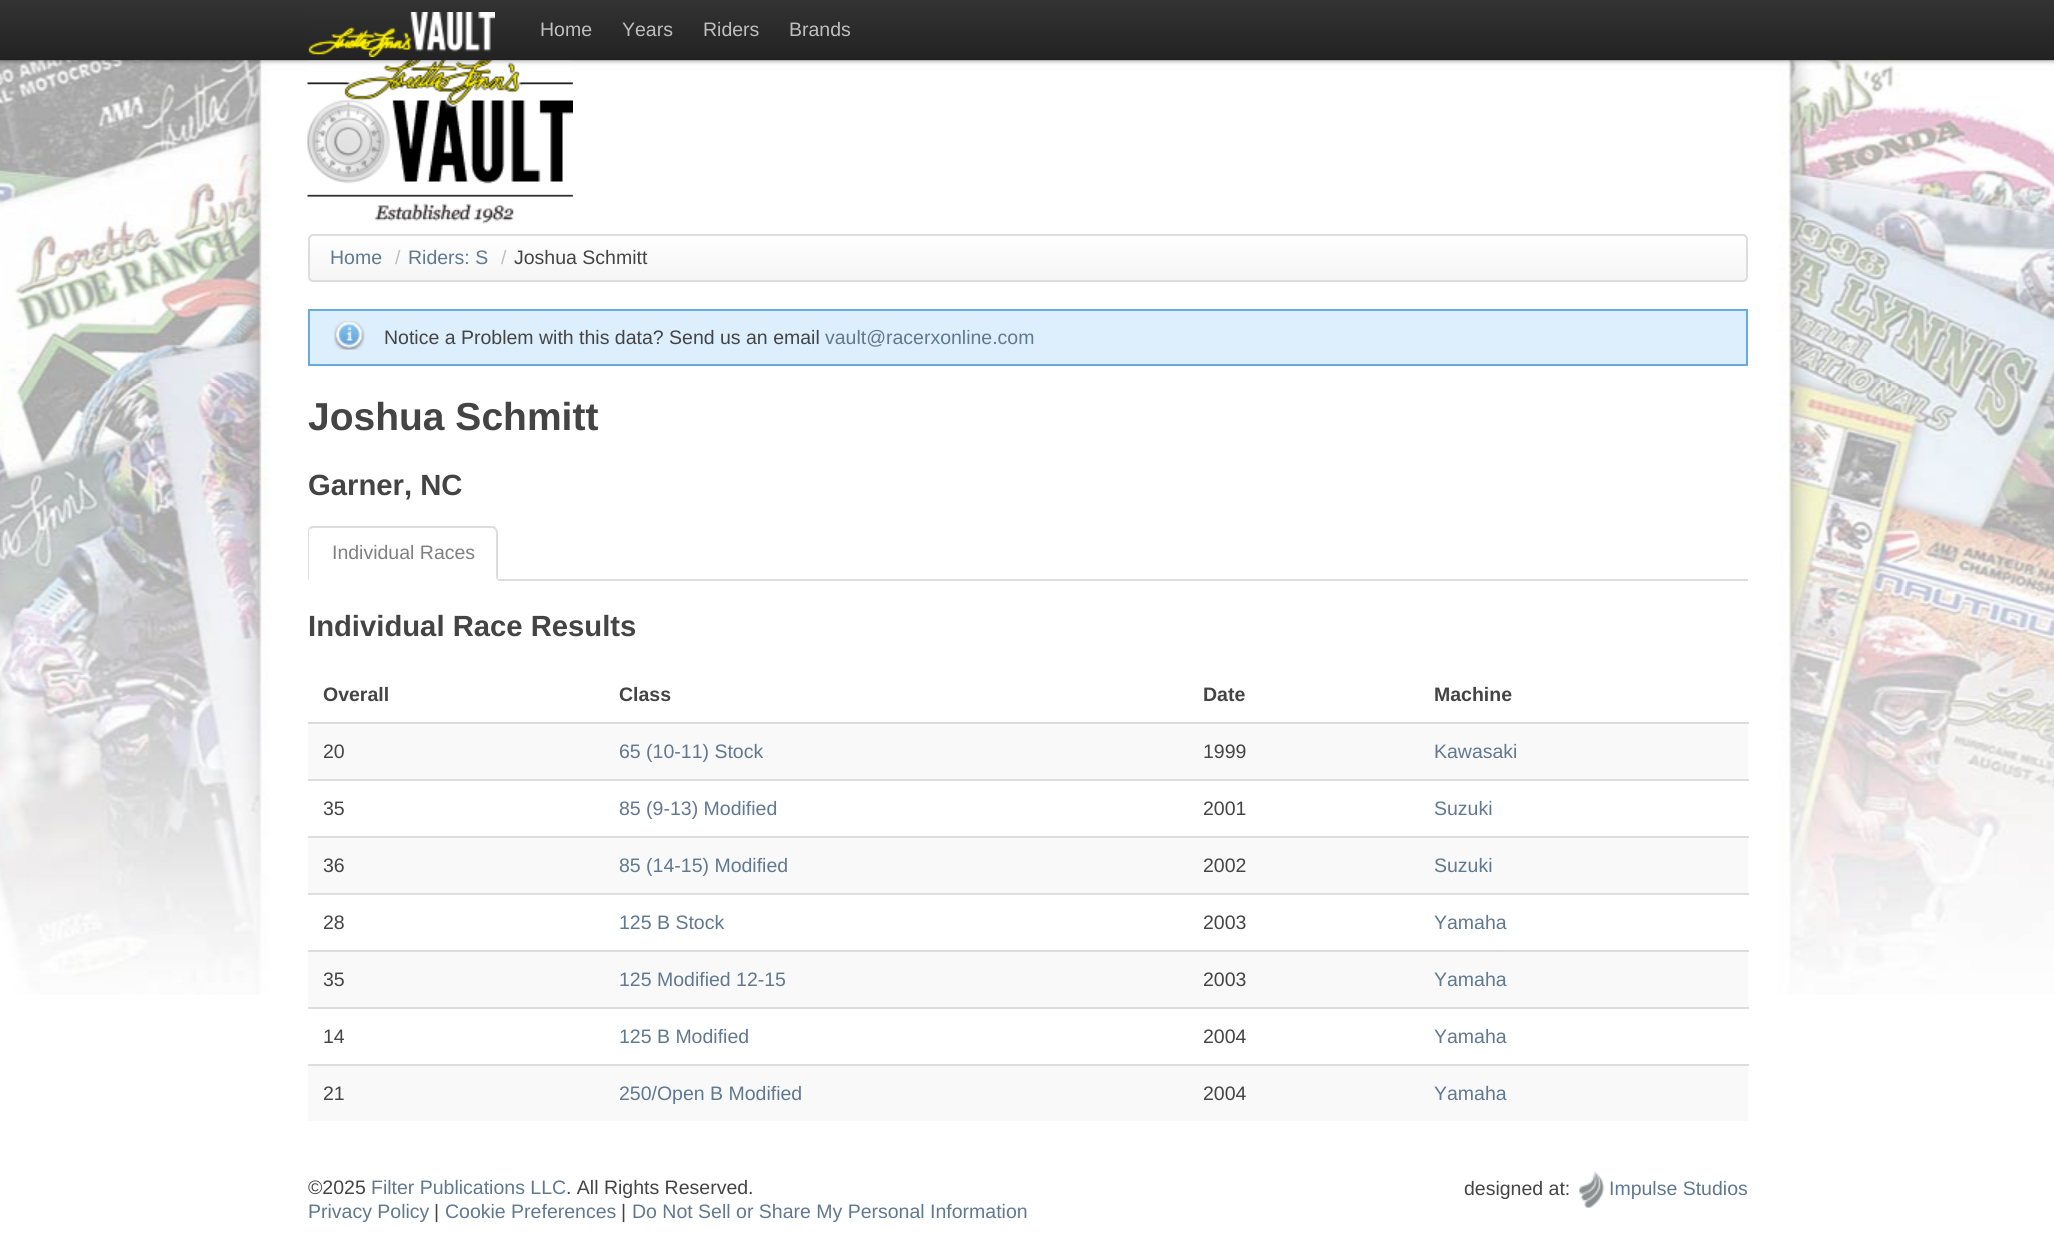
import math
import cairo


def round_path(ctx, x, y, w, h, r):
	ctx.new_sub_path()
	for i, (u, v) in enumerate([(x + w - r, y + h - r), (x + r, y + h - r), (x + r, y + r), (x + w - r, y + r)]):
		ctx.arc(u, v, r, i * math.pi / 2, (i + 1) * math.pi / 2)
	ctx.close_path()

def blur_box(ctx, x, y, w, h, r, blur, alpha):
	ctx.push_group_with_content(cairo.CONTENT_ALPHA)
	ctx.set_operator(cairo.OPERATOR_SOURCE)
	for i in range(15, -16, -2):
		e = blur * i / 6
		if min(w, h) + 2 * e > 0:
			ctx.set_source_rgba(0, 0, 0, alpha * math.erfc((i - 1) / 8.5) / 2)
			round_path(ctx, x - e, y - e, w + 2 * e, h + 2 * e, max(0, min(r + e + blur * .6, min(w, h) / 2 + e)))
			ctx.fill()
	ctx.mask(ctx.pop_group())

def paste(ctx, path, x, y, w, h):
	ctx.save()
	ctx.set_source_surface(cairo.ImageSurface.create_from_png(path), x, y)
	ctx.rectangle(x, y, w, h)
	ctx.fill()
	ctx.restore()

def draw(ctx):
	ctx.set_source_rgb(1, 1, 1)
	ctx.paint()
	paste(ctx, 'media/1.png', 0, 60, 2054, 935)
	paste(ctx, 'media/3.png', 307, 60, 266, 164)
	ctx.set_source_rgb(0, 0, 0)
	blur_box(ctx, 0, 2, 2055, 60, 0, 2, 0.25)
	gradient = cairo.LinearGradient(1028, 0, 1028, 60)
	gradient.add_color_stop_rgba(0, 0.2, 0.2, 0.2, 1)
	gradient.add_color_stop_rgba(1, 0.133, 0.133, 0.133, 1)
	ctx.set_source(gradient)
	ctx.rectangle(0, 0, 2054, 60)
	ctx.fill()
	ctx.set_source_rgba(0, 0, 0, 0.1)
	ctx.rectangle(0, 59, 2054, 2)
	ctx.fill()
	paste(ctx, 'media/2.png', 308, 12, 187, 45)
	ctx.select_font_face('Liberation Sans')
	ctx.set_font_size(19.5)
	ctx.set_source_rgb(0.749, 0.749, 0.749)
	for x, y, s in [
		(540, 36, 'Home'),
		(622, 36, 'Years'),
		(703, 36, 'Riders'),
		(789, 36, 'Brands'),
	]:
		ctx.move_to(x, y)
		ctx.show_text(s)
	ctx.save()
	round_path(ctx, 308, 234, 1440, 48, 5)
	ctx.clip()
	gradient = cairo.LinearGradient(1028, 235, 1028, 281)
	gradient.add_color_stop_rgba(0, 1, 1, 1, 1)
	gradient.add_color_stop_rgba(1, 0.961, 0.961, 0.961, 1)
	ctx.set_source(gradient)
	ctx.rectangle(308, 236, 1440, 45)
	ctx.fill()
	ctx.restore()
	round_path(ctx, 309, 235, 1438, 46, 4)
	ctx.set_source_rgb(0.867, 0.867, 0.867)
	ctx.stroke()
	ctx.set_source_rgb(0.376, 0.471, 0.565)
	ctx.move_to(330, 264)
	ctx.show_text('Home')
	ctx.set_source_rgb(0.749, 0.749, 0.749)
	ctx.move_to(395, 264)
	ctx.show_text('/')
	ctx.set_source_rgb(0.376, 0.471, 0.565)
	ctx.move_to(408, 264)
	ctx.show_text('Riders: S')
	ctx.set_source_rgb(0.749, 0.749, 0.749)
	ctx.move_to(501, 264)
	ctx.show_text('/')
	ctx.set_source_rgb(0.267, 0.267, 0.267)
	ctx.move_to(514, 264)
	ctx.show_text('Joshua Schmitt')
	ctx.set_source_rgb(0.867, 0.933, 0.988)
	ctx.rectangle(310, 311, 1436, 53)
	ctx.fill()
	paste(ctx, 'media/4.png', 334, 321, 31, 29)
	ctx.rectangle(309, 310, 1438, 55)
	ctx.set_source_rgb(0.408, 0.671, 0.867)
	ctx.stroke()
	ctx.set_source_rgb(0.267, 0.267, 0.267)
	ctx.move_to(384, 344)
	ctx.show_text('Notice a Problem with this data? Send us an email')
	ctx.set_source_rgb(0.376, 0.471, 0.565)
	ctx.move_to(825, 344)
	ctx.show_text('vault@racerxonline.com')
	ctx.select_font_face('Liberation Sans', cairo.FONT_SLANT_NORMAL, cairo.FONT_WEIGHT_BOLD)
	ctx.set_font_size(39)
	ctx.set_source_rgb(0.267, 0.267, 0.267)
	ctx.move_to(308, 430)
	ctx.show_text('Joshua Schmitt')
	ctx.set_font_size(29.25)
	ctx.move_to(308, 495)
	ctx.show_text('Garner, NC')
	ctx.set_source_rgb(0.867, 0.867, 0.867)
	ctx.rectangle(498, 579, 1250, 2)
	ctx.fill()
	ctx.new_path()
	ctx.move_to(314, 528)
	ctx.curve_to(312, 528, 311, 529, 310, 529)
	ctx.line_to(309, 528)
	ctx.line_to(311, 526)
	ctx.line_to(494, 526)
	ctx.line_to(496, 528)
	ctx.line_to(495, 530)
	ctx.curve_to(494, 529, 493, 528, 492, 528)
	ctx.close_path()
	ctx.fill()
	ctx.new_path()
	ctx.move_to(498, 580)
	ctx.line_to(498, 532)
	ctx.curve_to(498, 531, 497, 529, 496, 528)
	ctx.line_to(495, 530)
	ctx.line_to(496, 532)
	ctx.line_to(496, 578)
	ctx.close_path()
	ctx.fill()
	ctx.new_path()
	ctx.move_to(308, 580)
	ctx.line_to(309, 579)
	ctx.line_to(309, 531)
	ctx.line_to(310, 529)
	ctx.line_to(309, 528)
	ctx.curve_to(308, 529, 308, 531, 308, 532)
	ctx.close_path()
	ctx.fill()
	ctx.select_font_face('Liberation Sans')
	ctx.set_font_size(19.5)
	ctx.set_source_rgb(0.502, 0.502, 0.502)
	ctx.move_to(332, 559)
	ctx.show_text('Individual Races')
	ctx.select_font_face('Liberation Sans', cairo.FONT_SLANT_NORMAL, cairo.FONT_WEIGHT_BOLD)
	ctx.set_font_size(29.25)
	ctx.set_source_rgb(0.267, 0.267, 0.267)
	ctx.move_to(308, 636)
	ctx.show_text('Individual Race Results')
	ctx.set_font_size(19.5)
	for x, y, s in [
		(323, 701, 'Overall'),
		(619, 701, 'Class'),
		(1203, 701, 'Date'),
		(1434, 701, 'Machine'),
	]:
		ctx.move_to(x, y)
		ctx.show_text(s)
	ctx.set_source_rgb(0.976, 0.976, 0.976)
	ctx.rectangle(308, 724, 1440, 55)
	ctx.fill()
	ctx.select_font_face('Liberation Sans')
	ctx.set_source_rgb(0.267, 0.267, 0.267)
	ctx.move_to(323, 758)
	ctx.show_text('20')
	ctx.set_source_rgb(0.376, 0.471, 0.565)
	ctx.move_to(619, 758)
	ctx.show_text('65 (10-11) Stock')
	ctx.set_source_rgb(0.267, 0.267, 0.267)
	ctx.move_to(1203, 758)
	ctx.show_text('1999')
	ctx.set_source_rgb(0.867, 0.867, 0.867)
	ctx.rectangle(308, 722, 1441, 2)
	ctx.fill()
	ctx.set_source_rgb(0.376, 0.471, 0.565)
	ctx.move_to(1434, 758)
	ctx.show_text('Kawasaki')
	ctx.set_source_rgb(0.267, 0.267, 0.267)
	ctx.move_to(323, 815)
	ctx.show_text('35')
	ctx.set_source_rgb(0.376, 0.471, 0.565)
	ctx.move_to(619, 815)
	ctx.show_text('85 (9-13) Modified')
	ctx.set_source_rgb(0.267, 0.267, 0.267)
	ctx.move_to(1203, 815)
	ctx.show_text('2001')
	ctx.set_source_rgb(0.867, 0.867, 0.867)
	ctx.rectangle(308, 779, 1441, 2)
	ctx.fill()
	ctx.set_source_rgb(0.376, 0.471, 0.565)
	ctx.move_to(1434, 815)
	ctx.show_text('Suzuki')
	ctx.set_source_rgb(0.976, 0.976, 0.976)
	ctx.rectangle(308, 838, 1440, 55)
	ctx.fill()
	ctx.set_source_rgb(0.267, 0.267, 0.267)
	ctx.move_to(323, 872)
	ctx.show_text('36')
	ctx.set_source_rgb(0.376, 0.471, 0.565)
	ctx.move_to(619, 872)
	ctx.show_text('85 (14-15) Modified')
	ctx.set_source_rgb(0.267, 0.267, 0.267)
	ctx.move_to(1203, 872)
	ctx.show_text('2002')
	ctx.set_source_rgb(0.867, 0.867, 0.867)
	ctx.rectangle(308, 836, 1441, 2)
	ctx.fill()
	ctx.set_source_rgb(0.376, 0.471, 0.565)
	ctx.move_to(1434, 872)
	ctx.show_text('Suzuki')
	ctx.set_source_rgb(0.267, 0.267, 0.267)
	ctx.move_to(323, 929)
	ctx.show_text('28')
	ctx.set_source_rgb(0.376, 0.471, 0.565)
	ctx.move_to(619, 929)
	ctx.show_text('125 B Stock')
	ctx.set_source_rgb(0.267, 0.267, 0.267)
	ctx.move_to(1203, 929)
	ctx.show_text('2003')
	ctx.set_source_rgb(0.867, 0.867, 0.867)
	ctx.rectangle(308, 893, 1441, 2)
	ctx.fill()
	ctx.set_source_rgb(0.376, 0.471, 0.565)
	ctx.move_to(1434, 929)
	ctx.show_text('Yamaha')
	ctx.set_source_rgb(0.976, 0.976, 0.976)
	ctx.rectangle(308, 952, 1440, 55)
	ctx.fill()
	ctx.set_source_rgb(0.267, 0.267, 0.267)
	ctx.move_to(323, 986)
	ctx.show_text('35')
	ctx.set_source_rgb(0.376, 0.471, 0.565)
	ctx.move_to(619, 986)
	ctx.show_text('125 Modified 12-15')
	ctx.set_source_rgb(0.267, 0.267, 0.267)
	ctx.move_to(1203, 986)
	ctx.show_text('2003')
	ctx.set_source_rgb(0.867, 0.867, 0.867)
	ctx.rectangle(308, 950, 1441, 2)
	ctx.fill()
	ctx.set_source_rgb(0.376, 0.471, 0.565)
	ctx.move_to(1434, 986)
	ctx.show_text('Yamaha')
	ctx.set_source_rgb(0.267, 0.267, 0.267)
	ctx.move_to(323, 1043)
	ctx.show_text('14')
	ctx.set_source_rgb(0.376, 0.471, 0.565)
	ctx.move_to(619, 1043)
	ctx.show_text('125 B Modified')
	ctx.set_source_rgb(0.267, 0.267, 0.267)
	ctx.move_to(1203, 1043)
	ctx.show_text('2004')
	ctx.set_source_rgb(0.867, 0.867, 0.867)
	ctx.rectangle(308, 1007, 1441, 2)
	ctx.fill()
	ctx.set_source_rgb(0.376, 0.471, 0.565)
	ctx.move_to(1434, 1043)
	ctx.show_text('Yamaha')
	ctx.set_source_rgb(0.976, 0.976, 0.976)
	ctx.rectangle(308, 1066, 1440, 55)
	ctx.fill()
	ctx.set_source_rgb(0.267, 0.267, 0.267)
	ctx.move_to(323, 1100)
	ctx.show_text('21')
	ctx.set_source_rgb(0.376, 0.471, 0.565)
	ctx.move_to(619, 1100)
	ctx.show_text('250/Open B Modified')
	ctx.set_source_rgb(0.267, 0.267, 0.267)
	ctx.move_to(1203, 1100)
	ctx.show_text('2004')
	ctx.set_source_rgb(0.867, 0.867, 0.867)
	ctx.rectangle(308, 1064, 1441, 2)
	ctx.fill()
	ctx.set_source_rgb(0.376, 0.471, 0.565)
	ctx.move_to(1434, 1100)
	ctx.show_text('Yamaha')
	ctx.set_source_rgb(0.267, 0.267, 0.267)
	ctx.move_to(308, 1194)
	ctx.show_text('©2025')
	ctx.set_source_rgb(0.376, 0.471, 0.565)
	ctx.move_to(371, 1194)
	ctx.show_text('Filter Publications LLC')
	ctx.set_source_rgb(0.267, 0.267, 0.267)
	ctx.move_to(566, 1194)
	ctx.show_text('. All Rights Reserved.')
	ctx.set_source_rgb(0.376, 0.471, 0.565)
	ctx.move_to(308, 1218)
	ctx.show_text('Privacy Policy')
	ctx.set_source_rgb(0.267, 0.267, 0.267)
	ctx.move_to(434, 1218)
	ctx.show_text('|')
	ctx.set_source_rgb(0.376, 0.471, 0.565)
	ctx.move_to(445, 1218)
	ctx.show_text('Cookie Preferences')
	ctx.set_source_rgb(0.267, 0.267, 0.267)
	ctx.move_to(621, 1218)
	ctx.show_text('|')
	ctx.set_source_rgb(0.376, 0.471, 0.565)
	ctx.move_to(632, 1218)
	ctx.show_text('Do Not Sell or Share My Personal Information')
	ctx.set_source_rgb(0.267, 0.267, 0.267)
	ctx.move_to(1464, 1195)
	ctx.show_text('designed at:')
	paste(ctx, 'media/5.png', 1579, 1171, 26, 37)
	ctx.set_source_rgb(0.376, 0.471, 0.565)
	ctx.move_to(1609, 1195)
	ctx.show_text('Impulse Studios')


surface = cairo.ImageSurface(cairo.FORMAT_RGB24, 2054, 1238)
ctx = cairo.Context(surface)
options = cairo.FontOptions()
options.set_hint_metrics(cairo.HINT_METRICS_OFF)
options.set_hint_style(cairo.HINT_STYLE_NONE)
ctx.set_font_options(options)
ctx.set_miter_limit(4)
draw(ctx)
surface.write_to_png('image.png')
